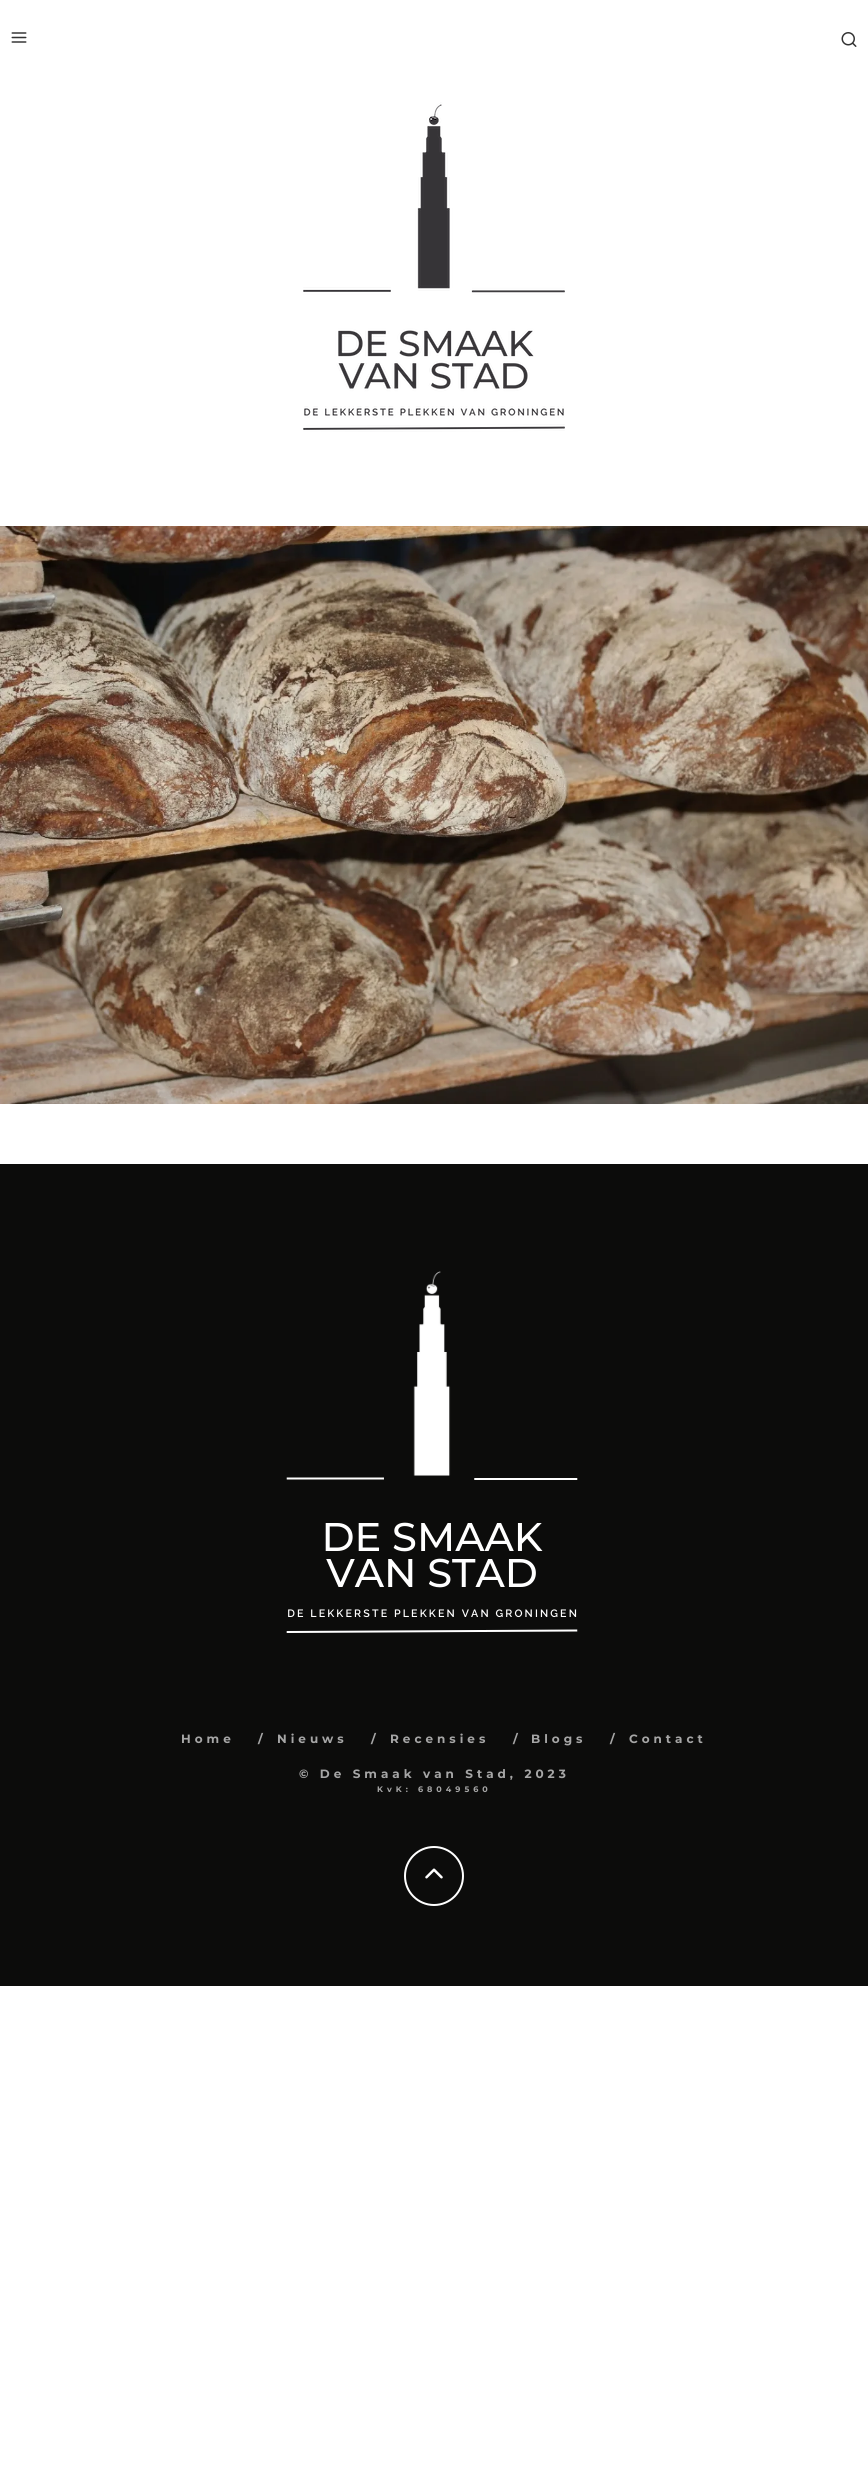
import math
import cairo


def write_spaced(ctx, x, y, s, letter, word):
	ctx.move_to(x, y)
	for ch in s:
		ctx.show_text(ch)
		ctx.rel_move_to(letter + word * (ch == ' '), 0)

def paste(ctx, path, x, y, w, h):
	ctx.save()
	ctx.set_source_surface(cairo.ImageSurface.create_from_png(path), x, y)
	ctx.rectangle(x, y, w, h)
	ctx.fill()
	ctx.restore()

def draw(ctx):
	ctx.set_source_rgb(1, 1, 1)
	ctx.paint()
	paste(ctx, 'media/1.png', 11, 32, 16, 11)
	paste(ctx, 'media/2.png', 841, 32, 16, 15)
	paste(ctx, 'media/3.png', 303, 102, 262, 330)
	paste(ctx, 'media/4.png', 0, 526, 868, 578)
	ctx.set_source_rgb(0.047, 0.047, 0.043)
	ctx.rectangle(0, 1164, 868, 822)
	ctx.fill()
	paste(ctx, 'media/5.png', 286, 1271, 292, 362)
	ctx.select_font_face('Montserrat', cairo.FONT_SLANT_NORMAL, cairo.FONT_WEIGHT_BOLD)
	ctx.set_font_size(12)
	ctx.set_source_rgb(0.651, 0.651, 0.651)
	for x, y, s in [
		(181, 1743, 'Home'),
		(258, 1743, '/'),
		(277, 1743, 'Nieuws'),
		(371, 1743, '/'),
		(390, 1743, 'Recensies'),
		(513, 1743, '/'),
		(531, 1743, 'Blogs'),
		(610, 1743, '/'),
		(629, 1743, 'Contact'),
		(299, 1778, '© De Smaak van Stad, 2023'),
	]:
		write_spaced(ctx, x, y, s, 4, 0)
	ctx.set_font_size(8)
	write_spaced(ctx, 377, 1792, 'KvK: 68049560', 4, 0)
	ctx.new_path()
	ctx.arc(434, 1876, 29, 0, 2 * math.pi)
	ctx.set_source_rgb(1, 1, 1)
	ctx.stroke()
	paste(ctx, 'media/6.png', 425, 1868, 18, 11)


surface = cairo.ImageSurface(cairo.FORMAT_RGB24, 868, 2475)
ctx = cairo.Context(surface)
options = cairo.FontOptions()
options.set_hint_metrics(cairo.HINT_METRICS_OFF)
options.set_hint_style(cairo.HINT_STYLE_NONE)
ctx.set_font_options(options)
ctx.set_miter_limit(4)
draw(ctx)
surface.write_to_png('image.png')
